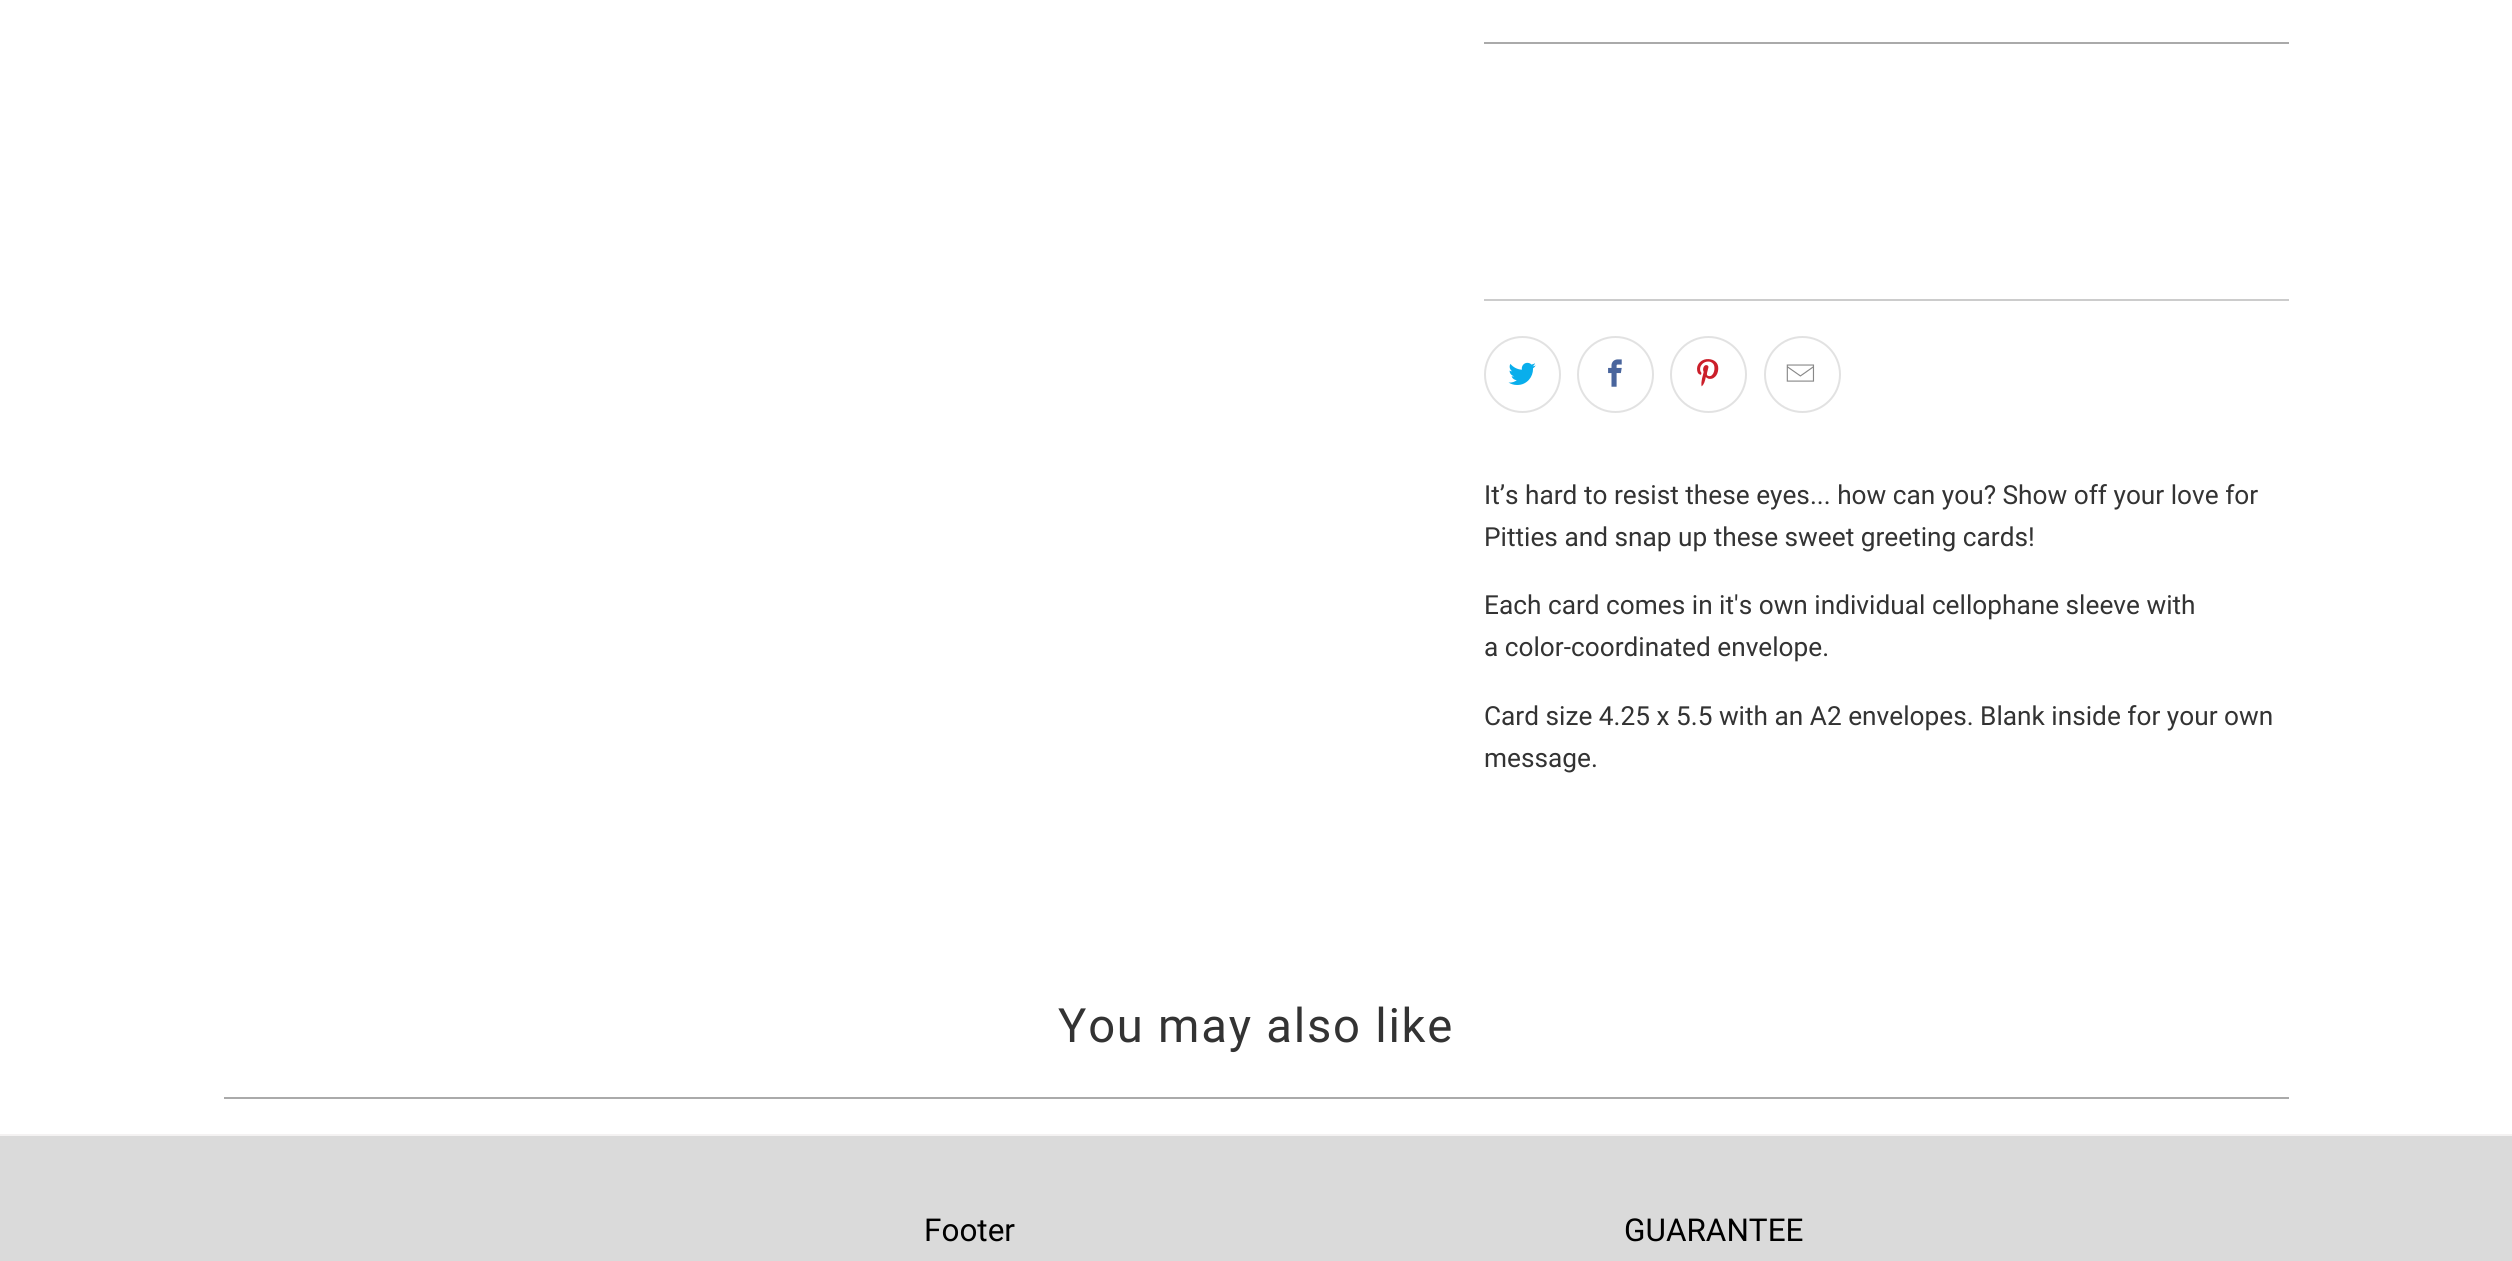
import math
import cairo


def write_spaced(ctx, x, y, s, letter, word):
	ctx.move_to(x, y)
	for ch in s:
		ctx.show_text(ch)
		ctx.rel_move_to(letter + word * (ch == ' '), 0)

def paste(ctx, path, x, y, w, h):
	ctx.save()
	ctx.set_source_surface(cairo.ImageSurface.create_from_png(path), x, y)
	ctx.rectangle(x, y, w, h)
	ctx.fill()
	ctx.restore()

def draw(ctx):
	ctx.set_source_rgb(1, 1, 1)
	ctx.paint()
	ctx.set_source_rgb(0.667, 0.667, 0.667)
	ctx.rectangle(1484, 42, 805, 2)
	ctx.fill()
	ctx.set_source_rgb(0.8, 0.8, 0.8)
	ctx.rectangle(1484, 299, 805, 2)
	ctx.fill()
	ctx.arc(1522.5, 374.5, 37.5, 0, 2 * math.pi)
	ctx.set_source_rgb(0.886, 0.886, 0.886)
	ctx.stroke()
	paste(ctx, 'media/1.png', 1508, 362, 28, 23)
	ctx.arc(1615.5, 374.5, 37.5, 0, 2 * math.pi)
	ctx.stroke()
	paste(ctx, 'media/2.png', 1608, 359, 14, 28)
	ctx.arc(1708.5, 374.5, 37.5, 0, 2 * math.pi)
	ctx.stroke()
	paste(ctx, 'media/3.png', 1697, 359, 22, 28)
	ctx.arc(1802.5, 374.5, 37.5, 0, 2 * math.pi)
	ctx.stroke()
	paste(ctx, 'media/4.png', 1786, 364, 29, 18)
	ctx.select_font_face('Roboto')
	ctx.set_font_size(26.25)
	ctx.set_source_rgb(0.2, 0.2, 0.2)
	for x, y, s in [
		(1484, 504, 'It’s hard to resist these eyes... how can you? Show off your love for'),
		(1484, 546, 'Pitties and snap up these sweet greeting cards!'),
		(1484, 614, 'Each card comes in it\'s own individual cellophane sleeve with'),
		(1484, 656, 'a color-coordinated envelope.'),
		(1484, 725, 'Card size 4.25 x 5.5 with an A2 envelopes. Blank inside for your own'),
		(1484, 767, 'message.'),
	]:
		ctx.move_to(x, y)
		ctx.show_text(s)
	ctx.set_font_size(47.25)
	write_spaced(ctx, 1058, 1042, 'You may also like', 1.75, 0)
	ctx.set_source_rgb(0.667, 0.667, 0.667)
	ctx.rectangle(224, 1097, 2065, 2)
	ctx.fill()
	ctx.set_source_rgb(0.855, 0.855, 0.855)
	ctx.rectangle(0, 1136, 2512, 125)
	ctx.fill()
	ctx.set_source_rgb(0.957, 0.949, 0.949)
	ctx.rectangle(0, 1134, 2512, 2)
	ctx.fill()
	ctx.set_font_size(31.5)
	ctx.set_source_rgb(0, 0, 0)
	ctx.move_to(924, 1241)
	ctx.show_text('Footer')
	ctx.move_to(1624, 1241)
	ctx.show_text('GUARANTEE')


surface = cairo.ImageSurface(cairo.FORMAT_RGB24, 2512, 1261)
ctx = cairo.Context(surface)
options = cairo.FontOptions()
options.set_hint_metrics(cairo.HINT_METRICS_OFF)
options.set_hint_style(cairo.HINT_STYLE_NONE)
ctx.set_font_options(options)
ctx.set_miter_limit(4)
draw(ctx)
surface.write_to_png('image.png')
